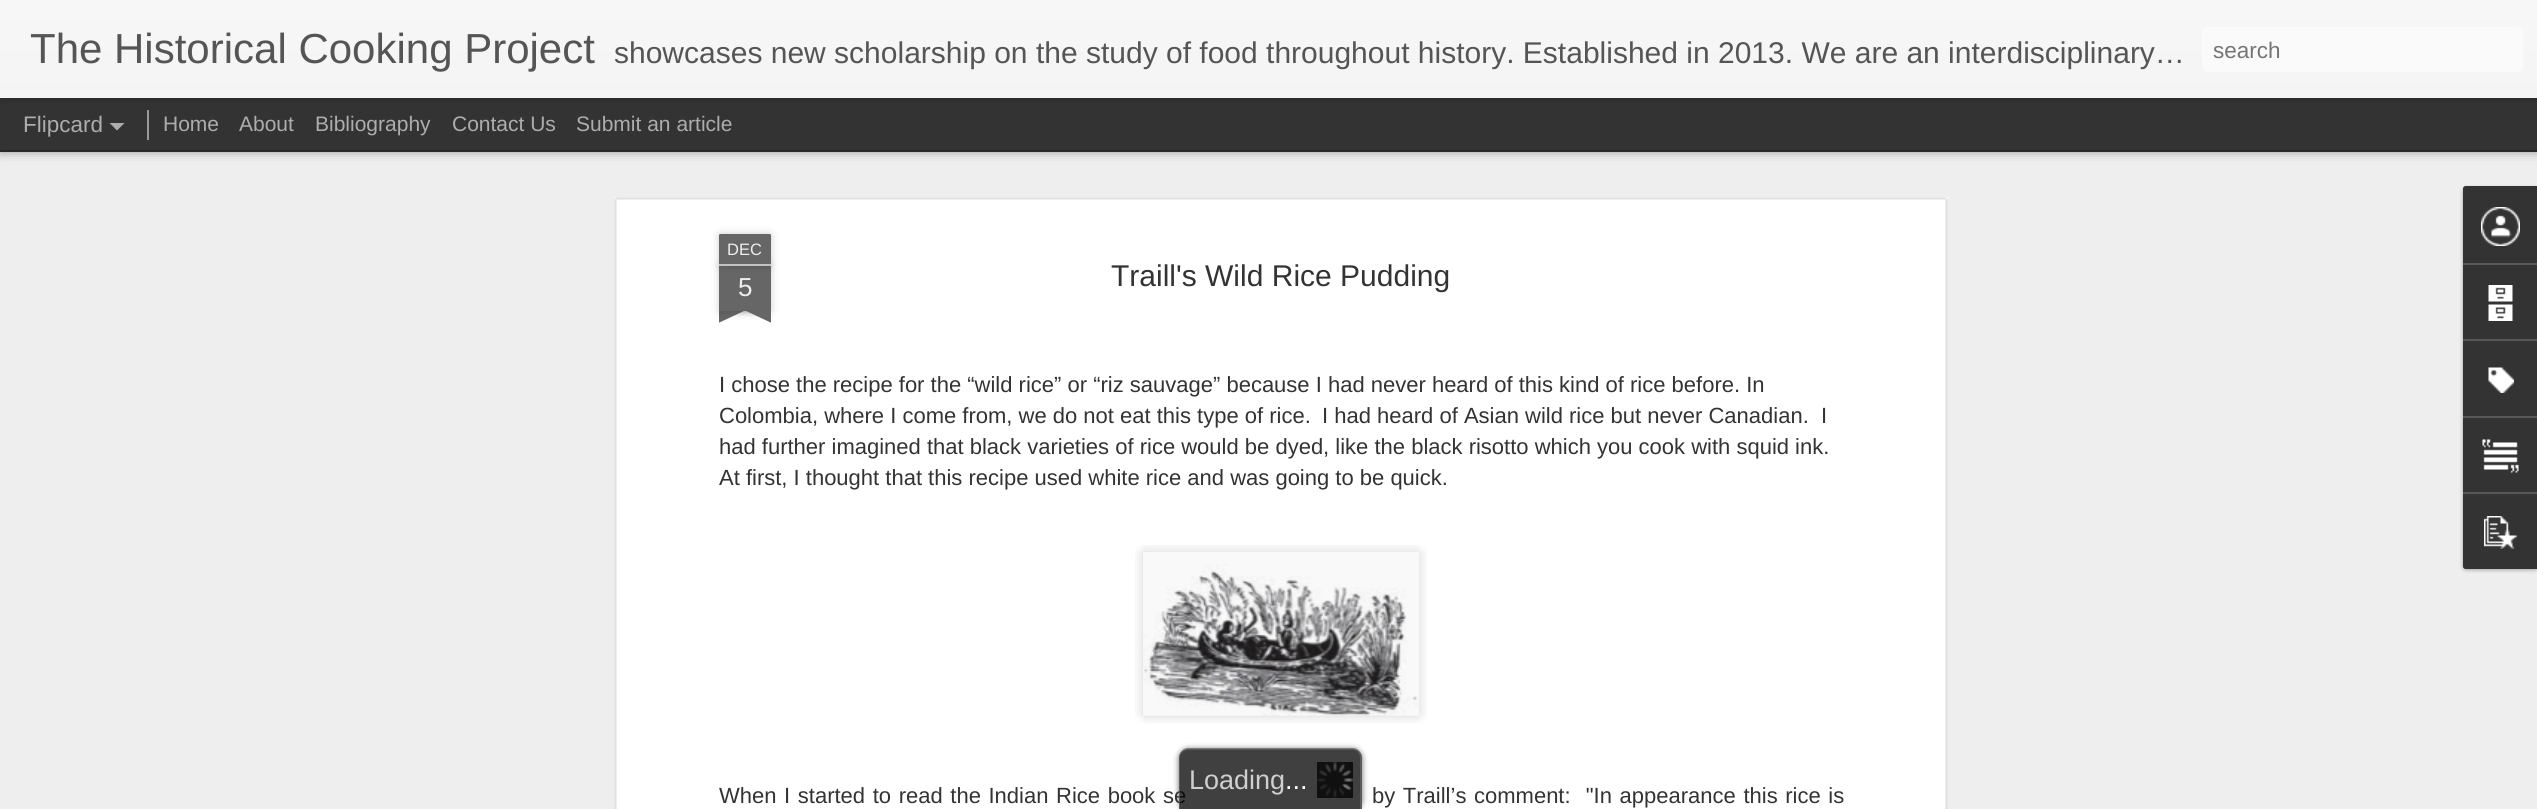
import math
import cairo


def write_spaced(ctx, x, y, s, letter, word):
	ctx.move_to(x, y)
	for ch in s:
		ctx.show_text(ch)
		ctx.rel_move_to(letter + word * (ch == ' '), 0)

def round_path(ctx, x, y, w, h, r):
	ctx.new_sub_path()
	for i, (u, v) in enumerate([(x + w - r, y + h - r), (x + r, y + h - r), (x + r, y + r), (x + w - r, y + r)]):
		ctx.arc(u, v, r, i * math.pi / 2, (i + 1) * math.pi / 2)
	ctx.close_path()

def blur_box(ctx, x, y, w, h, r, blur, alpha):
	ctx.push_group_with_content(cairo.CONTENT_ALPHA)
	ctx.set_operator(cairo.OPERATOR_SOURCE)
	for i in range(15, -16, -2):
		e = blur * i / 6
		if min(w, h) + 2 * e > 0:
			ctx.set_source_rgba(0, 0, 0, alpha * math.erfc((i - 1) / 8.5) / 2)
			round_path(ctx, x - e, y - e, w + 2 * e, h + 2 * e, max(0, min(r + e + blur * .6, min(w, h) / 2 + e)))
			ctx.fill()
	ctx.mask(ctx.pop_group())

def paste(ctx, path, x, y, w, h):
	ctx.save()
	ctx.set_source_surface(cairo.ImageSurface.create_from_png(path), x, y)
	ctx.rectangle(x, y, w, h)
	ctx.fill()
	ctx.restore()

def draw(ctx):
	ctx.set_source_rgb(0.2, 0.2, 0.2)
	ctx.paint()
	ctx.set_source_rgb(0.933, 0.933, 0.933)
	ctx.rectangle(0, 152, 2537, 657)
	ctx.fill()
	ctx.set_source_rgb(0, 0, 0)
	blur_box(ctx, 0, 98, 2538, 52, 0, 6, 0.5)
	ctx.set_source_rgb(0.2, 0.2, 0.2)
	ctx.rectangle(0, 98, 2537, 52)
	ctx.fill()
	ctx.set_source_rgb(0.6, 0.6, 0.6)
	ctx.rectangle(147, 110, 2, 30)
	ctx.fill()
	ctx.set_source_rgb(0, 0, 0)
	blur_box(ctx, 0, 0, 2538, 98, 0, 4, 0.3)
	gradient = cairo.LinearGradient(0, 0, 0, 98)
	gradient.add_color_stop_rgba(0, 0.969, 0.969, 0.969, 1)
	gradient.add_color_stop_rgba(1, 0.957, 0.957, 0.957, 1)
	ctx.set_source(gradient)
	ctx.rectangle(0, 0, 2537, 98)
	ctx.fill()
	ctx.select_font_face('Liberation Sans')
	ctx.set_font_size(42)
	ctx.set_source_rgb(0.333, 0.333, 0.333)
	ctx.move_to(30, 63)
	ctx.show_text('The Historical Cooking Project')
	ctx.set_font_size(30)
	ctx.move_to(614, 63)
	ctx.show_text('showcases new scholarship on the study of food throughout history. Established in 2013. We are an interdisciplinary…')
	ctx.set_source_rgb(0.98, 0.98, 0.98)
	round_path(ctx, 2202, 27, 321, 45, 5)
	ctx.fill()
	ctx.set_font_size(22.5)
	ctx.set_source_rgb(0.459, 0.459, 0.459)
	ctx.move_to(2213, 58)
	ctx.show_text('search')
	ctx.set_source_rgb(0.678, 0.678, 0.678)
	ctx.move_to(23, 132)
	ctx.show_text('Flipcard')
	ctx.new_path()
	ctx.move_to(109.5, 123)
	ctx.line_to(124.5, 123)
	ctx.line_to(117, 130.5)
	ctx.close_path()
	ctx.fill()
	ctx.set_font_size(21)
	for x, y, s in [
		(163, 131, 'Home'),
		(239, 131, 'About'),
		(315, 131, 'Bibliography'),
		(452, 131, 'Contact Us'),
		(576, 131, 'Submit an article'),
	]:
		ctx.move_to(x, y)
		ctx.show_text(s)
	ctx.set_source_rgb(1, 1, 1)
	ctx.rectangle(614, 197, 1335, 612)
	ctx.fill()
	paste(ctx, 'media/1.png', 614, 197, 1335, 612)
	ctx.set_source_rgb(0, 0, 0)
	blur_box(ctx, 719, 266, 52, 45, 0, 4, 0.2)
	ctx.set_source_rgb(0.4, 0.4, 0.4)
	ctx.rectangle(719, 266, 52, 45)
	ctx.fill()
	ctx.set_source_rgb(0, 0, 0)
	blur_box(ctx, 719, 234, 52, 32, 1.5, 4, 0.2)
	ctx.set_source_rgb(0.4, 0.4, 0.4)
	ctx.new_path()
	ctx.move_to(720.5, 234)
	ctx.line_to(769.5, 234)
	ctx.curve_to(770.5, 234, 771, 234.5, 771, 235.5)
	ctx.line_to(771, 266)
	ctx.line_to(719, 266)
	ctx.line_to(719, 235.5)
	ctx.curve_to(719, 234.5, 719.5, 234, 720.5, 234)
	ctx.close_path()
	ctx.fill()
	ctx.set_source_rgb(0.761, 0.761, 0.761)
	ctx.rectangle(719, 264, 52, 2)
	ctx.fill()
	ctx.set_font_size(16.5)
	ctx.set_source_rgb(0.933, 0.933, 0.933)
	ctx.move_to(727, 255)
	ctx.show_text('DEC')
	ctx.set_font_size(26)
	ctx.move_to(738, 296)
	ctx.show_text('5')
	ctx.save()
	ctx.rectangle(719, 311, 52, 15)
	ctx.clip()
	ctx.set_source_rgb(0, 0, 0)
	blur_box(ctx, 705, 296, 75, 15, 0, 4, 0.2)
	ctx.restore()
	ctx.save()
	ctx.rectangle(719, 311, 52, 15)
	ctx.clip()
	ctx.set_source_rgb(0.4, 0.4, 0.4)
	ctx.new_path()
	ctx.move_to(705, 312)
	ctx.line_to(773, 280)
	ctx.line_to(780, 294)
	ctx.line_to(712, 326)
	ctx.close_path()
	ctx.fill()
	ctx.restore()
	ctx.save()
	ctx.rectangle(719, 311, 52, 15)
	ctx.clip()
	ctx.set_source_rgb(0, 0, 0)
	blur_box(ctx, 710, 296, 75, 15, 0, 4, 0.2)
	ctx.restore()
	ctx.save()
	ctx.rectangle(719, 311, 52, 15)
	ctx.clip()
	ctx.set_source_rgb(0.4, 0.4, 0.4)
	ctx.new_path()
	ctx.move_to(716, 280)
	ctx.line_to(784, 312)
	ctx.line_to(778, 326)
	ctx.line_to(710, 294)
	ctx.close_path()
	ctx.fill()
	ctx.restore()
	ctx.set_font_size(30)
	ctx.set_source_rgb(0.2, 0.2, 0.2)
	ctx.move_to(1111, 286)
	ctx.show_text('Traill\'s Wild Rice Pudding')
	ctx.set_font_size(22)
	for x, y, s in [
		(719, 392, 'I chose the recipe for the “wild rice” or “riz sauvage” because I had never heard of this kind of rice before. In'),
		(719, 423, 'Colombia, where I come from, we do not eat this type of rice.'),
		(1322, 423, 'I had heard of Asian wild rice but never Canadian.'),
		(1821, 423, 'I'),
		(719, 454, 'had further imagined that black varieties of rice would be dyed, like the black risotto which you cook with squid ink.'),
		(719, 485, 'At first, I thought that this recipe used white rice and was going to be quick.'),
	]:
		ctx.move_to(x, y)
		ctx.show_text(s)
	paste(ctx, 'media/2.png', 1135, 545, 292, 178)
	paste(ctx, 'media/3.png', 1144, 552, 276, 164)
	write_spaced(ctx, 719, 803, 'When I started to read the Indian Rice book se', 0, 1.5)
	write_spaced(ctx, 1372, 803, 'by Traill’s comment:  "In appearance this rice is', 0, 1.5)
	ctx.set_source_rgb(0, 0, 0)
	blur_box(ctx, 2463, 188, 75, 382, 3, 2, 0.3)
	ctx.set_source_rgb(0.2, 0.2, 0.2)
	ctx.new_path()
	ctx.move_to(2466, 186)
	ctx.line_to(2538, 186)
	ctx.line_to(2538, 569)
	ctx.line_to(2466, 569)
	ctx.curve_to(2464.5, 569, 2463, 567.5, 2463, 566)
	ctx.line_to(2463, 189)
	ctx.curve_to(2463, 187.5, 2464.5, 186, 2466, 186)
	ctx.close_path()
	ctx.fill()
	ctx.new_path()
	ctx.move_to(2466, 186)
	ctx.line_to(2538, 186)
	ctx.line_to(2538, 263)
	ctx.line_to(2463, 263)
	ctx.line_to(2463, 189)
	ctx.curve_to(2463, 187.5, 2464.5, 186, 2466, 186)
	ctx.close_path()
	ctx.fill()
	paste(ctx, 'media/4.png', 2481, 207, 39, 39)
	ctx.set_source_rgb(0.345, 0.345, 0.345)
	ctx.rectangle(2463, 263, 74, 2)
	ctx.fill()
	paste(ctx, 'media/5.png', 2488, 285, 25, 36)
	ctx.rectangle(2463, 339, 74, 2)
	ctx.fill()
	paste(ctx, 'media/6.png', 2488, 367, 26, 26)
	ctx.rectangle(2463, 416, 74, 2)
	ctx.fill()
	paste(ctx, 'media/7.png', 2482, 439, 37, 34)
	ctx.set_source_rgb(0.2, 0.2, 0.2)
	ctx.new_path()
	ctx.move_to(2463, 492)
	ctx.line_to(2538, 492)
	ctx.line_to(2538, 569)
	ctx.line_to(2466, 569)
	ctx.curve_to(2464.5, 569, 2463, 567.5, 2463, 566)
	ctx.close_path()
	ctx.fill()
	ctx.set_source_rgb(0.345, 0.345, 0.345)
	ctx.rectangle(2463, 492, 74, 2)
	ctx.fill()
	paste(ctx, 'media/8.png', 2484, 516, 33, 33)
	ctx.save()
	ctx.set_fill_rule(cairo.FILL_RULE_EVEN_ODD)
	ctx.new_path()
	ctx.move_to(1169, 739)
	ctx.line_to(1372, 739)
	ctx.line_to(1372, 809)
	ctx.line_to(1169, 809)
	ctx.close_path()
	ctx.move_to(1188, 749)
	ctx.line_to(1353, 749)
	ctx.curve_to(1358, 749, 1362, 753, 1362, 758)
	ctx.line_to(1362, 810)
	ctx.line_to(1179, 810)
	ctx.line_to(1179, 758)
	ctx.curve_to(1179, 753, 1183, 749, 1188, 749)
	ctx.close_path()
	ctx.clip()
	ctx.set_source_rgb(0.2, 0.2, 0.2)
	blur_box(ctx, 1179, 749, 183, 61, 9, 3, 0.75)
	ctx.restore()
	ctx.set_source_rgba(0, 0, 0, 0.75)
	ctx.new_path()
	ctx.move_to(1188, 749)
	ctx.line_to(1353, 749)
	ctx.curve_to(1358, 749, 1362, 753, 1362, 758)
	ctx.line_to(1362, 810)
	ctx.line_to(1179, 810)
	ctx.line_to(1179, 758)
	ctx.curve_to(1179, 753, 1183, 749, 1188, 749)
	ctx.close_path()
	ctx.fill()
	ctx.set_source_rgba(0.4, 0.4, 0.4, 0.75)
	ctx.set_fill_rule(cairo.FILL_RULE_EVEN_ODD)
	ctx.new_path()
	ctx.move_to(1188, 748)
	ctx.line_to(1353, 748)
	ctx.curve_to(1358, 748, 1362, 753, 1362, 758)
	ctx.line_to(1362, 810)
	ctx.line_to(1179, 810)
	ctx.line_to(1179, 758)
	ctx.curve_to(1179, 753, 1183, 748, 1188, 748)
	ctx.close_path()
	ctx.move_to(1188, 750)
	ctx.line_to(1353, 750)
	ctx.curve_to(1357, 750, 1360, 753, 1360, 758)
	ctx.line_to(1360, 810)
	ctx.line_to(1180, 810)
	ctx.line_to(1180, 758)
	ctx.curve_to(1180, 753, 1184, 750, 1188, 750)
	ctx.close_path()
	ctx.fill()
	paste(ctx, 'media/9.png', 1317, 762, 36, 36)
	ctx.set_font_size(27)
	ctx.set_source_rgb(0.812, 0.812, 0.812)
	ctx.move_to(1189, 789)
	ctx.show_text('Loading')
	ctx.set_source_rgb(1, 1, 1)
	ctx.move_to(1285, 789)
	ctx.show_text('...')


surface = cairo.ImageSurface(cairo.FORMAT_RGB24, 2537, 809)
ctx = cairo.Context(surface)
options = cairo.FontOptions()
options.set_hint_metrics(cairo.HINT_METRICS_OFF)
options.set_hint_style(cairo.HINT_STYLE_NONE)
ctx.set_font_options(options)
ctx.set_miter_limit(4)
draw(ctx)
surface.write_to_png('image.png')
